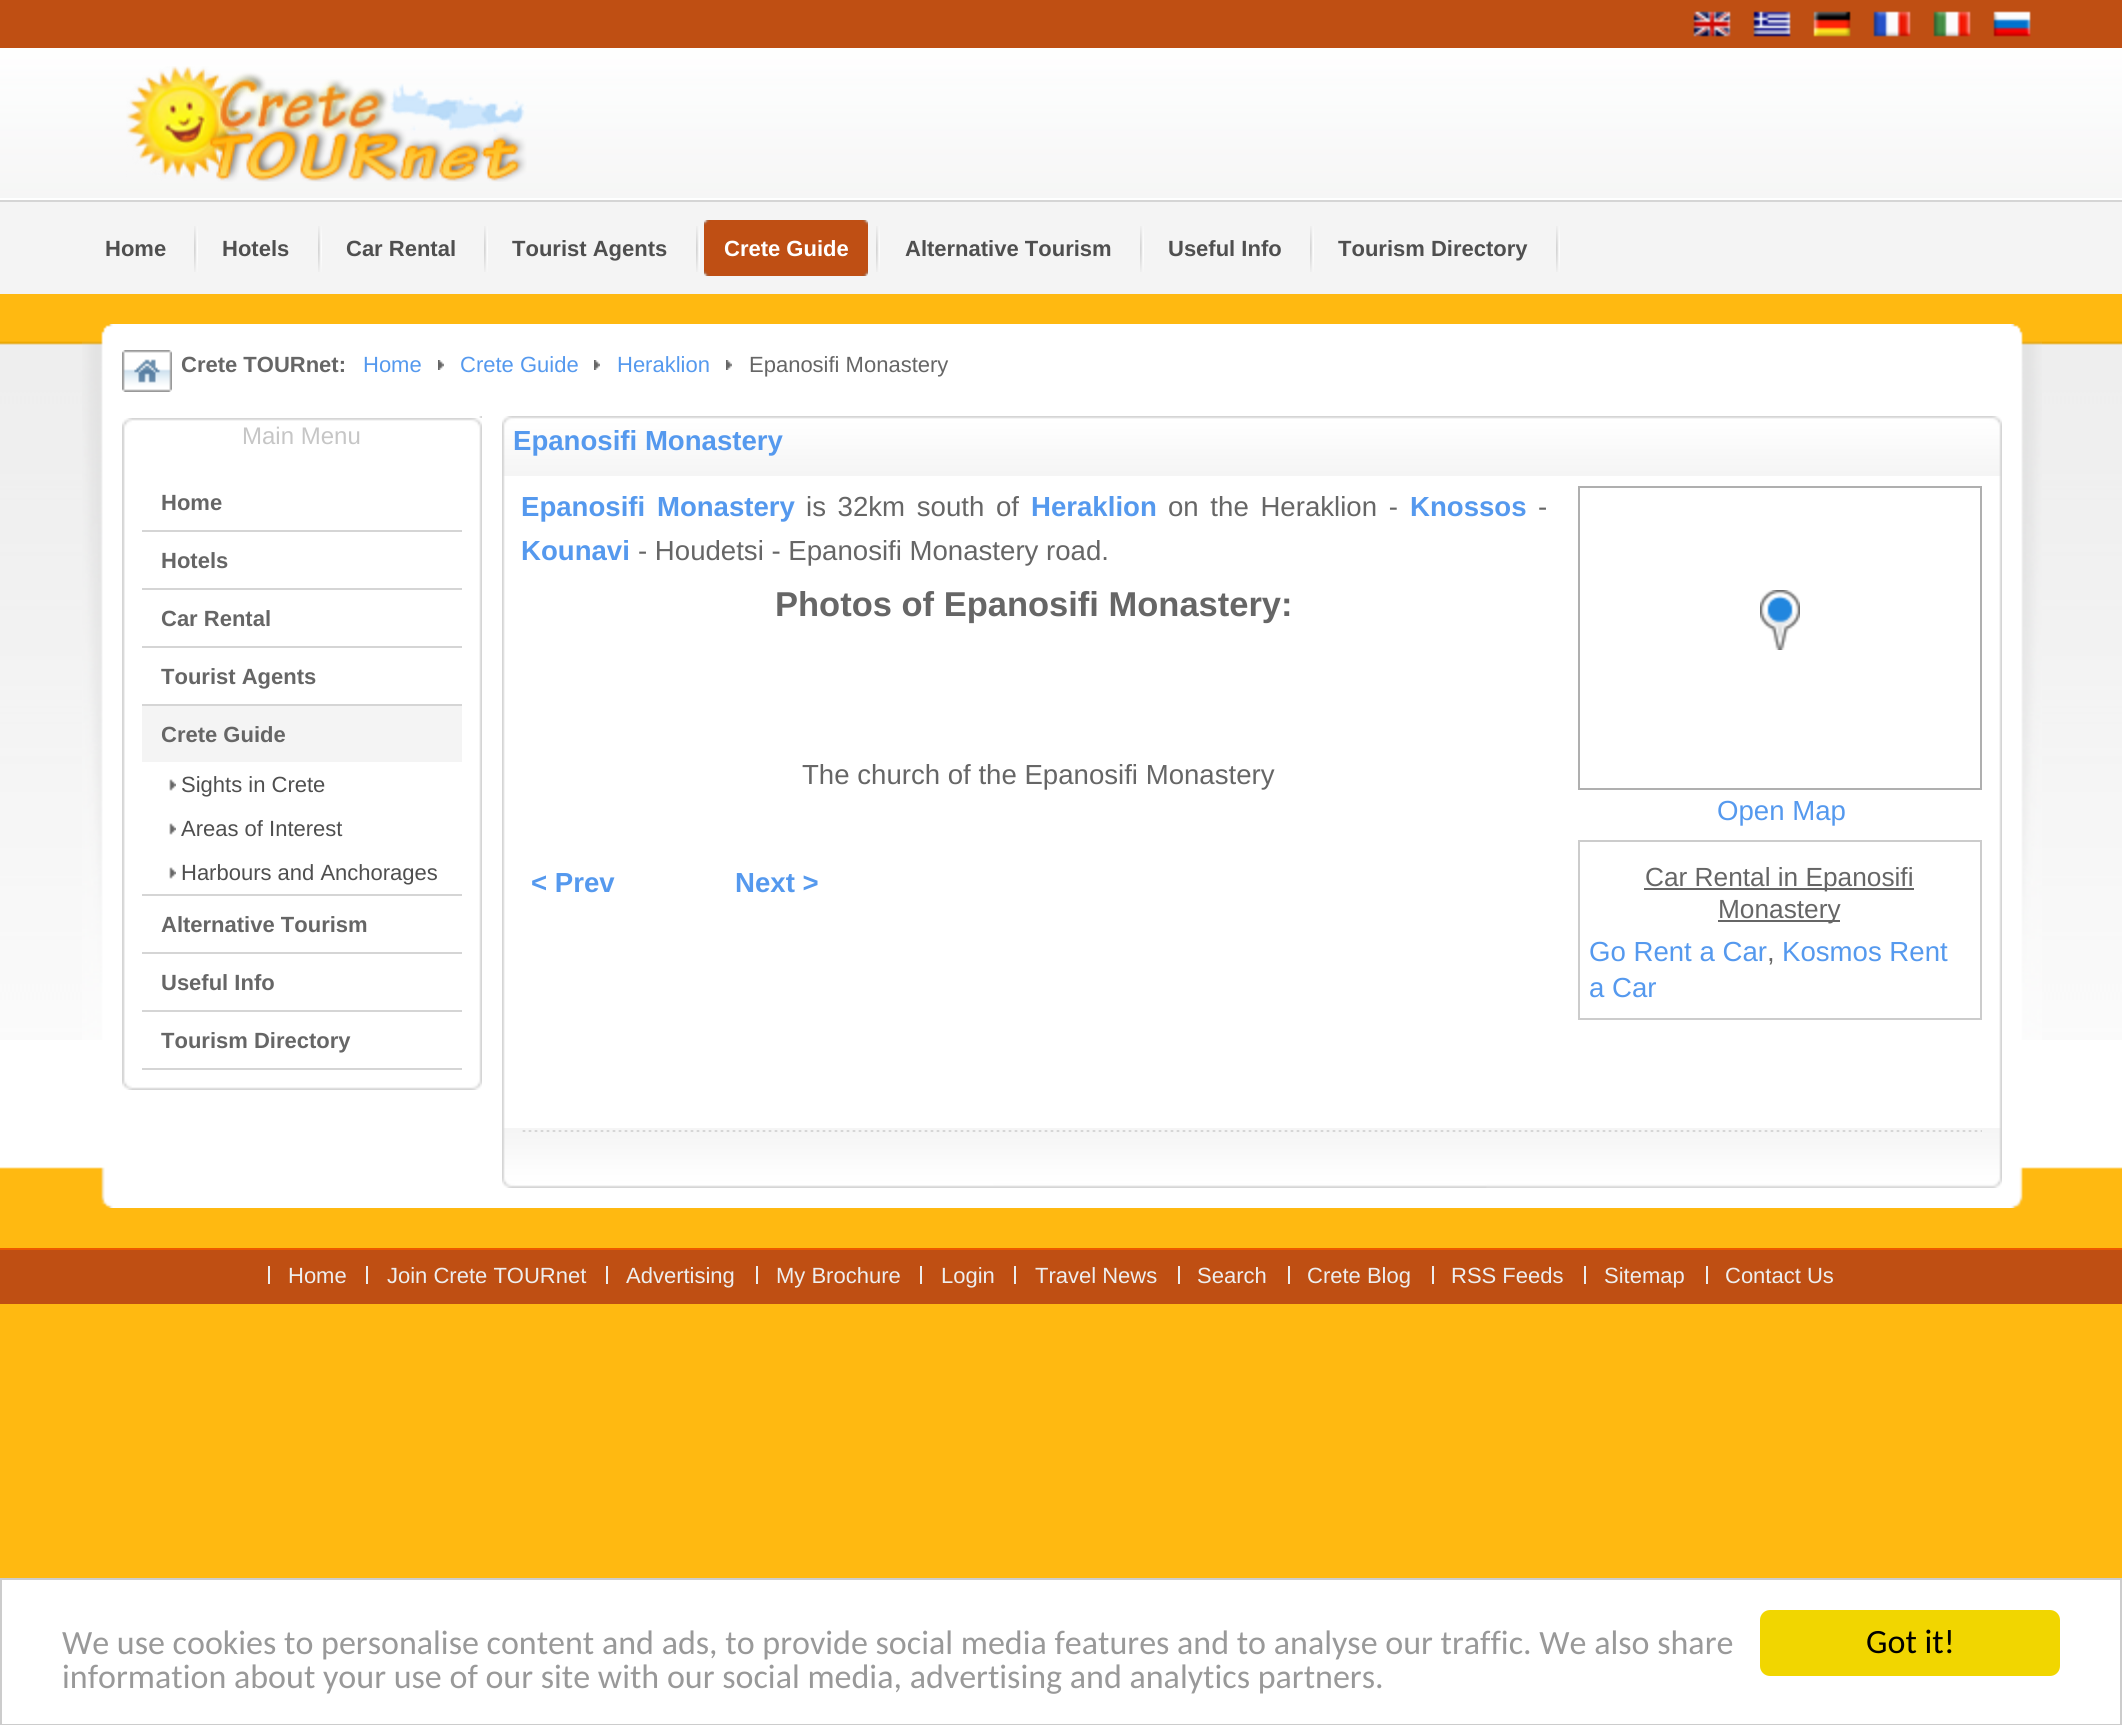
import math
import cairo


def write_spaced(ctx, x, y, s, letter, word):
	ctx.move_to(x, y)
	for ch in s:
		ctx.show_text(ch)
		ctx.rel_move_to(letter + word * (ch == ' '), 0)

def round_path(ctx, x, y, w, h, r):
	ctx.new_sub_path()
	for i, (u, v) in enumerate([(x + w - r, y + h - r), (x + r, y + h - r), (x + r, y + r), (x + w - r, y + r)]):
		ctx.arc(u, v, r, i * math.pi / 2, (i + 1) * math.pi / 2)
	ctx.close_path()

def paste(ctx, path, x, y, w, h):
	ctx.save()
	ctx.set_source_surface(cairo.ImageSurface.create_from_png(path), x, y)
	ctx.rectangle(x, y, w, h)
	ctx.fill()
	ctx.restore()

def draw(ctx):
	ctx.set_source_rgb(1, 0.725, 0.067)
	ctx.paint()
	ctx.set_source_rgb(0.749, 0.31, 0.078)
	ctx.rectangle(0, 0, 2122, 48)
	ctx.fill()
	paste(ctx, 'media/1.png', 1693, 11, 38, 26)
	paste(ctx, 'media/2.png', 1753, 11, 38, 26)
	paste(ctx, 'media/3.png', 1813, 11, 38, 26)
	paste(ctx, 'media/4.png', 1873, 11, 38, 26)
	paste(ctx, 'media/5.png', 1933, 11, 38, 26)
	paste(ctx, 'media/6.png', 1993, 11, 38, 26)
	paste(ctx, 'media/7.png', 0, 48, 2122, 150)
	ctx.set_source_rgb(1, 1, 1)
	ctx.rectangle(0, 198, 2122, 2)
	ctx.fill()
	paste(ctx, 'media/8.png', 126, 66, 401, 116)
	ctx.set_source_rgb(0.957, 0.957, 0.957)
	ctx.rectangle(0, 202, 2122, 92)
	ctx.fill()
	ctx.set_source_rgb(0.835, 0.835, 0.835)
	ctx.rectangle(0, 200, 2122, 2)
	ctx.fill()
	paste(ctx, 'media/9.png', 194, 226, 4, 46)
	ctx.select_font_face('Liberation Sans', cairo.FONT_SLANT_NORMAL, cairo.FONT_WEIGHT_BOLD)
	ctx.set_font_size(22)
	ctx.set_source_rgb(0.31, 0.31, 0.31)
	ctx.move_to(105, 256)
	ctx.show_text('Home')
	paste(ctx, 'media/9.png', 318, 226, 4, 46)
	ctx.move_to(222, 256)
	ctx.show_text('Hotels')
	paste(ctx, 'media/9.png', 484, 226, 4, 46)
	ctx.move_to(346, 256)
	ctx.show_text('Car Rental')
	paste(ctx, 'media/9.png', 696, 226, 4, 46)
	ctx.move_to(512, 256)
	ctx.show_text('Tourist Agents')
	paste(ctx, 'media/9.png', 876, 226, 4, 46)
	paste(ctx, 'media/10.png', 704, 220, 158, 56)
	paste(ctx, 'media/11.png', 862, 220, 6, 56)
	ctx.set_source_rgb(1, 1, 1)
	ctx.move_to(724, 256)
	ctx.show_text('Crete Guide')
	paste(ctx, 'media/9.png', 1140, 226, 4, 46)
	ctx.set_source_rgb(0.31, 0.31, 0.31)
	ctx.move_to(905, 256)
	ctx.show_text('Alternative Tourism')
	paste(ctx, 'media/9.png', 1310, 226, 4, 46)
	ctx.move_to(1168, 256)
	ctx.show_text('Useful Info')
	paste(ctx, 'media/9.png', 1556, 226, 4, 46)
	ctx.move_to(1338, 256)
	ctx.show_text('Tourism Directory')
	ctx.set_source_rgb(1, 1, 1)
	ctx.rectangle(0, 1040, 2122, 129)
	ctx.fill()
	paste(ctx, 'media/12.png', 0, 324, 2122, 716)
	paste(ctx, 'media/13.png', 0, 1167, 2122, 41)
	paste(ctx, 'media/14.png', 82, 324, 1960, 716)
	paste(ctx, 'media/15.png', 101, 1167, 1922, 41)
	paste(ctx, 'media/16.png', 122, 350, 50, 42)
	ctx.set_source_rgb(0.4, 0.4, 0.4)
	ctx.move_to(181, 372)
	ctx.show_text('Crete TOURnet:')
	ctx.select_font_face('Liberation Sans')
	ctx.set_source_rgb(0.333, 0.6, 0.933)
	ctx.move_to(363, 372)
	ctx.show_text('Home')
	paste(ctx, 'media/17.png', 438, 360, 6, 10)
	ctx.move_to(460, 372)
	ctx.show_text('Crete Guide')
	paste(ctx, 'media/17.png', 594, 360, 6, 10)
	ctx.move_to(617, 372)
	ctx.show_text('Heraklion')
	paste(ctx, 'media/17.png', 726, 360, 6, 10)
	ctx.set_source_rgb(0.4, 0.4, 0.4)
	ctx.move_to(749, 372)
	ctx.show_text('Epanosifi Monastery')
	paste(ctx, 'media/18.png', 122, 416, 360, 674)
	paste(ctx, 'media/19.png', 122, 482, 10, 608)
	paste(ctx, 'media/20.png', 132, 418, 350, 64)
	paste(ctx, 'media/21.png', 122, 418, 10, 64)
	ctx.set_font_size(24)
	ctx.set_source_rgb(0.776, 0.776, 0.776)
	ctx.move_to(242, 444)
	ctx.show_text('Main Menu')
	ctx.set_source_rgb(0.835, 0.835, 0.835)
	ctx.rectangle(142, 530, 320, 2)
	ctx.fill()
	ctx.select_font_face('Liberation Sans', cairo.FONT_SLANT_NORMAL, cairo.FONT_WEIGHT_BOLD)
	ctx.set_font_size(22)
	ctx.set_source_rgb(0.4, 0.4, 0.4)
	ctx.move_to(161, 510)
	ctx.show_text('Home')
	ctx.set_source_rgb(0.835, 0.835, 0.835)
	ctx.rectangle(142, 588, 320, 2)
	ctx.fill()
	ctx.set_source_rgb(0.4, 0.4, 0.4)
	ctx.move_to(161, 568)
	ctx.show_text('Hotels')
	ctx.set_source_rgb(0.835, 0.835, 0.835)
	ctx.rectangle(142, 646, 320, 2)
	ctx.fill()
	ctx.set_source_rgb(0.4, 0.4, 0.4)
	ctx.move_to(161, 626)
	ctx.show_text('Car Rental')
	ctx.set_source_rgb(0.835, 0.835, 0.835)
	ctx.rectangle(142, 704, 320, 2)
	ctx.fill()
	ctx.set_source_rgb(0.4, 0.4, 0.4)
	ctx.move_to(161, 684)
	ctx.show_text('Tourist Agents')
	ctx.set_source_rgb(0.835, 0.835, 0.835)
	ctx.rectangle(142, 894, 320, 2)
	ctx.fill()
	ctx.set_source_rgb(0.957, 0.957, 0.957)
	ctx.rectangle(142, 706, 320, 56)
	ctx.fill()
	ctx.set_source_rgb(0.4, 0.4, 0.4)
	ctx.move_to(161, 742)
	ctx.show_text('Crete Guide')
	paste(ctx, 'media/22.png', 169, 779, 7, 12)
	ctx.select_font_face('Liberation Sans')
	ctx.set_source_rgb(0.31, 0.31, 0.31)
	ctx.move_to(181, 792)
	ctx.show_text('Sights in Crete')
	paste(ctx, 'media/22.png', 169, 823, 7, 12)
	ctx.move_to(181, 836)
	ctx.show_text('Areas of Interest')
	paste(ctx, 'media/22.png', 169, 867, 7, 12)
	ctx.move_to(181, 880)
	ctx.show_text('Harbours and Anchorages')
	ctx.set_source_rgb(0.835, 0.835, 0.835)
	ctx.rectangle(142, 952, 320, 2)
	ctx.fill()
	ctx.select_font_face('Liberation Sans', cairo.FONT_SLANT_NORMAL, cairo.FONT_WEIGHT_BOLD)
	ctx.set_source_rgb(0.4, 0.4, 0.4)
	ctx.move_to(161, 932)
	ctx.show_text('Alternative Tourism')
	ctx.set_source_rgb(0.835, 0.835, 0.835)
	ctx.rectangle(142, 1010, 320, 2)
	ctx.fill()
	ctx.set_source_rgb(0.4, 0.4, 0.4)
	ctx.move_to(161, 990)
	ctx.show_text('Useful Info')
	ctx.set_source_rgb(0.835, 0.835, 0.835)
	ctx.rectangle(142, 1068, 320, 2)
	ctx.fill()
	ctx.set_source_rgb(0.4, 0.4, 0.4)
	ctx.move_to(161, 1048)
	ctx.show_text('Tourism Directory')
	paste(ctx, 'media/23.png', 502, 476, 1500, 652)
	paste(ctx, 'media/24.png', 502, 416, 1500, 60)
	paste(ctx, 'media/25.png', 502, 1128, 1500, 60)
	ctx.set_font_size(27.6)
	ctx.set_source_rgb(0.333, 0.6, 0.933)
	ctx.move_to(513, 450)
	ctx.show_text('Epanosifi Monastery')
	write_spaced(ctx, 521, 516, 'Epanosifi Monastery', 0, 4)
	ctx.select_font_face('Liberation Sans')
	ctx.set_source_rgb(0.4, 0.4, 0.4)
	write_spaced(ctx, 806, 516, 'is 32km south of', 0, 4)
	ctx.select_font_face('Liberation Sans', cairo.FONT_SLANT_NORMAL, cairo.FONT_WEIGHT_BOLD)
	ctx.set_source_rgb(0.333, 0.6, 0.933)
	ctx.move_to(1031, 516)
	ctx.show_text('Heraklion')
	ctx.select_font_face('Liberation Sans')
	ctx.set_source_rgb(0.4, 0.4, 0.4)
	write_spaced(ctx, 1168, 516, 'on the Heraklion -', 0, 4)
	ctx.select_font_face('Liberation Sans', cairo.FONT_SLANT_NORMAL, cairo.FONT_WEIGHT_BOLD)
	ctx.set_source_rgb(0.333, 0.6, 0.933)
	ctx.move_to(1410, 516)
	ctx.show_text('Knossos')
	ctx.select_font_face('Liberation Sans')
	ctx.set_source_rgb(0.4, 0.4, 0.4)
	ctx.move_to(1538, 516)
	ctx.show_text('-')
	ctx.select_font_face('Liberation Sans', cairo.FONT_SLANT_NORMAL, cairo.FONT_WEIGHT_BOLD)
	ctx.set_source_rgb(0.333, 0.6, 0.933)
	ctx.move_to(521, 560)
	ctx.show_text('Kounavi')
	ctx.select_font_face('Liberation Sans')
	ctx.set_source_rgb(0.4, 0.4, 0.4)
	ctx.move_to(638, 560)
	ctx.show_text('- Houdetsi - Epanosifi Monastery road.')
	ctx.rectangle(1579, 487, 402, 302)
	ctx.set_source_rgb(0.686, 0.686, 0.686)
	ctx.stroke()
	paste(ctx, 'media/26.png', 1760, 590, 40, 60)
	ctx.select_font_face('Liberation Sans', cairo.FONT_SLANT_NORMAL, cairo.FONT_WEIGHT_BOLD)
	ctx.set_font_size(34.5)
	ctx.set_source_rgb(0.4, 0.4, 0.4)
	ctx.move_to(775, 616)
	ctx.show_text('Photos of Epanosifi Monastery:')
	ctx.select_font_face('Liberation Sans')
	ctx.set_font_size(27.6)
	ctx.move_to(802, 784)
	ctx.show_text('The church of the Epanosifi Monastery')
	ctx.set_source_rgb(0.333, 0.6, 0.933)
	ctx.move_to(1717, 820)
	ctx.show_text('Open Map')
	ctx.select_font_face('Liberation Sans', cairo.FONT_SLANT_NORMAL, cairo.FONT_WEIGHT_BOLD)
	ctx.move_to(531, 892)
	ctx.show_text('< Prev')
	ctx.move_to(735, 892)
	ctx.show_text('Next >')
	ctx.rectangle(1579, 841, 402, 178)
	ctx.set_source_rgb(0.8, 0.8, 0.8)
	ctx.stroke()
	ctx.set_source_rgb(0.4, 0.4, 0.4)
	ctx.rectangle(1644, 888, 270, 2)
	ctx.fill()
	ctx.select_font_face('Liberation Sans')
	ctx.set_font_size(26.25)
	ctx.move_to(1645, 886)
	ctx.show_text('Car Rental in Epanosifi')
	ctx.rectangle(1718, 920, 122, 2)
	ctx.fill()
	ctx.move_to(1718, 918)
	ctx.show_text('Monastery')
	ctx.set_font_size(27.6)
	ctx.set_source_rgb(0.333, 0.6, 0.933)
	ctx.move_to(1589, 961)
	ctx.show_text('Go Rent a Car')
	ctx.set_source_rgb(0.4, 0.4, 0.4)
	ctx.move_to(1767, 961)
	ctx.show_text(',')
	ctx.set_source_rgb(0.333, 0.6, 0.933)
	ctx.move_to(1782, 961)
	ctx.show_text('Kosmos Rent')
	ctx.move_to(1589, 997)
	ctx.show_text('a Car')
	paste(ctx, 'media/27.png', 522, 1130, 1460, 2)
	ctx.set_source_rgb(0.749, 0.31, 0.078)
	ctx.rectangle(0, 1250, 2122, 54)
	ctx.fill()
	ctx.set_source_rgb(0.925, 0.349, 0)
	ctx.rectangle(0, 1248, 2122, 2)
	ctx.fill()
	ctx.set_font_size(22)
	ctx.set_source_rgb(0.933, 0.933, 0.933)
	ctx.move_to(288, 1283)
	ctx.show_text('Home')
	ctx.set_source_rgb(0.929, 0.929, 0.929)
	ctx.rectangle(268, 1266, 2, 18)
	ctx.fill()
	ctx.set_source_rgb(0.933, 0.933, 0.933)
	ctx.move_to(387, 1283)
	ctx.show_text('Join Crete TOURnet')
	ctx.set_source_rgb(0.929, 0.929, 0.929)
	ctx.rectangle(366, 1266, 2, 18)
	ctx.fill()
	ctx.set_source_rgb(0.933, 0.933, 0.933)
	ctx.move_to(626, 1283)
	ctx.show_text('Advertising')
	ctx.set_source_rgb(0.929, 0.929, 0.929)
	ctx.rectangle(606, 1266, 2, 18)
	ctx.fill()
	ctx.set_source_rgb(0.933, 0.933, 0.933)
	ctx.move_to(776, 1283)
	ctx.show_text('My Brochure')
	ctx.set_source_rgb(0.929, 0.929, 0.929)
	ctx.rectangle(756, 1266, 2, 18)
	ctx.fill()
	ctx.set_source_rgb(0.933, 0.933, 0.933)
	ctx.move_to(941, 1283)
	ctx.show_text('Login')
	ctx.set_source_rgb(0.929, 0.929, 0.929)
	ctx.rectangle(920, 1266, 2, 18)
	ctx.fill()
	ctx.set_source_rgb(0.933, 0.933, 0.933)
	ctx.move_to(1035, 1283)
	ctx.show_text('Travel News')
	ctx.set_source_rgb(0.929, 0.929, 0.929)
	ctx.rectangle(1014, 1266, 2, 18)
	ctx.fill()
	ctx.set_source_rgb(0.933, 0.933, 0.933)
	ctx.move_to(1197, 1283)
	ctx.show_text('Search')
	ctx.set_source_rgb(0.929, 0.929, 0.929)
	ctx.rectangle(1178, 1266, 2, 18)
	ctx.fill()
	ctx.set_source_rgb(0.933, 0.933, 0.933)
	ctx.move_to(1307, 1283)
	ctx.show_text('Crete Blog')
	ctx.set_source_rgb(0.929, 0.929, 0.929)
	ctx.rectangle(1288, 1266, 2, 18)
	ctx.fill()
	ctx.set_source_rgb(0.933, 0.933, 0.933)
	ctx.move_to(1451, 1283)
	ctx.show_text('RSS Feeds')
	ctx.set_source_rgb(0.929, 0.929, 0.929)
	ctx.rectangle(1432, 1266, 2, 18)
	ctx.fill()
	ctx.set_source_rgb(0.933, 0.933, 0.933)
	ctx.move_to(1604, 1283)
	ctx.show_text('Sitemap')
	ctx.set_source_rgb(0.929, 0.929, 0.929)
	ctx.rectangle(1584, 1266, 2, 18)
	ctx.fill()
	ctx.set_source_rgb(0.933, 0.933, 0.933)
	ctx.move_to(1725, 1283)
	ctx.show_text('Contact Us')
	ctx.set_source_rgb(0.929, 0.929, 0.929)
	ctx.rectangle(1706, 1266, 2, 18)
	ctx.fill()
	ctx.set_source_rgb(1, 1, 1)
	ctx.rectangle(1, 1579, 2120, 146)
	ctx.fill_preserve()
	ctx.set_source_rgb(0.8, 0.8, 0.8)
	ctx.stroke()
	ctx.select_font_face('Carlito')
	ctx.set_font_size(34)
	ctx.set_source_rgb(0.6, 0.6, 0.6)
	ctx.move_to(62, 1654)
	ctx.show_text('We use cookies to personalise content and ads, to provide social media features and to analyse our traffic. We also share')
	ctx.move_to(62, 1688)
	ctx.show_text('information about your use of our site with our social media, advertising and analytics partners.')
	ctx.set_source_rgb(0.945, 0.839, 0)
	round_path(ctx, 1760, 1610, 300, 66, 10)
	ctx.fill()
	ctx.set_source_rgb(0, 0, 0)
	ctx.move_to(1866, 1653)
	ctx.show_text('Got it!')


surface = cairo.ImageSurface(cairo.FORMAT_RGB24, 2122, 1725)
ctx = cairo.Context(surface)
options = cairo.FontOptions()
options.set_hint_metrics(cairo.HINT_METRICS_OFF)
options.set_hint_style(cairo.HINT_STYLE_NONE)
ctx.set_font_options(options)
ctx.set_miter_limit(4)
draw(ctx)
surface.write_to_png('image.png')
